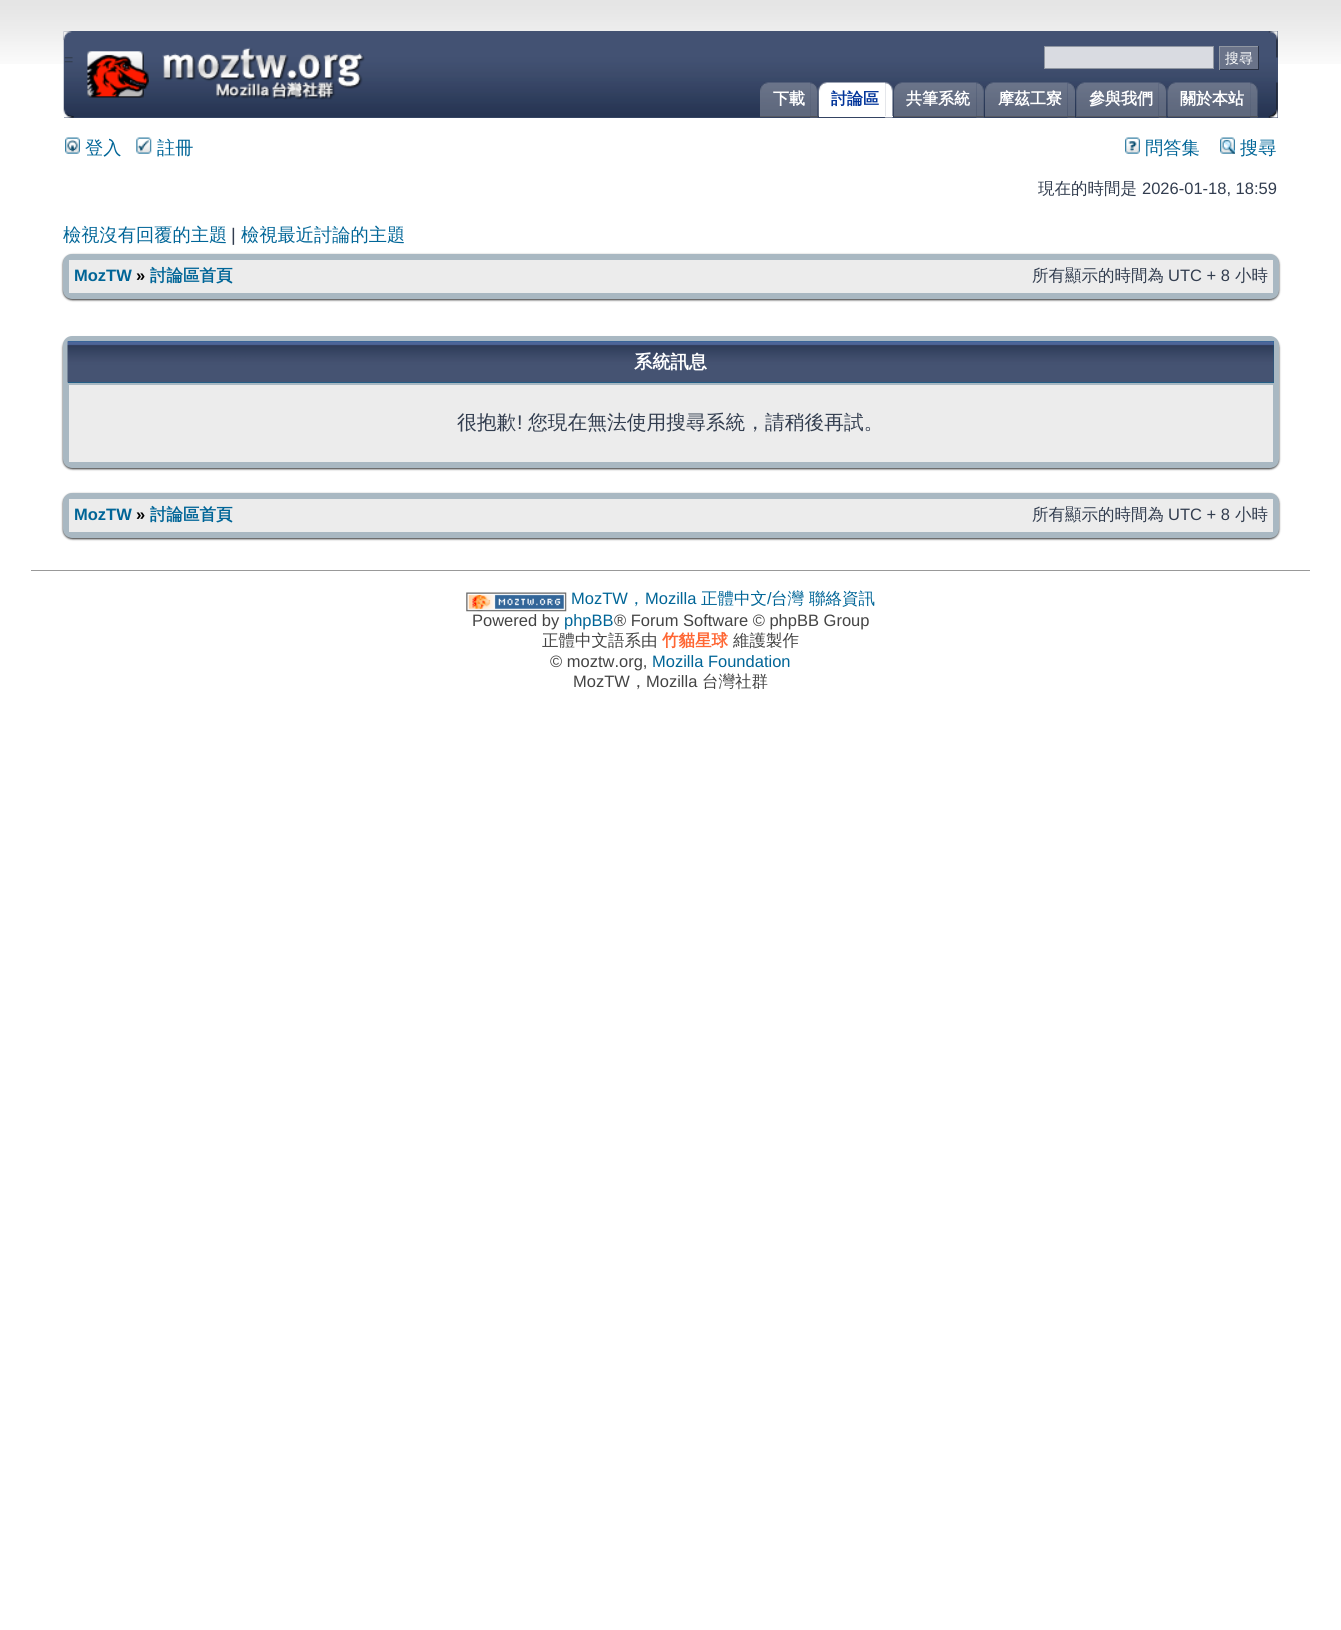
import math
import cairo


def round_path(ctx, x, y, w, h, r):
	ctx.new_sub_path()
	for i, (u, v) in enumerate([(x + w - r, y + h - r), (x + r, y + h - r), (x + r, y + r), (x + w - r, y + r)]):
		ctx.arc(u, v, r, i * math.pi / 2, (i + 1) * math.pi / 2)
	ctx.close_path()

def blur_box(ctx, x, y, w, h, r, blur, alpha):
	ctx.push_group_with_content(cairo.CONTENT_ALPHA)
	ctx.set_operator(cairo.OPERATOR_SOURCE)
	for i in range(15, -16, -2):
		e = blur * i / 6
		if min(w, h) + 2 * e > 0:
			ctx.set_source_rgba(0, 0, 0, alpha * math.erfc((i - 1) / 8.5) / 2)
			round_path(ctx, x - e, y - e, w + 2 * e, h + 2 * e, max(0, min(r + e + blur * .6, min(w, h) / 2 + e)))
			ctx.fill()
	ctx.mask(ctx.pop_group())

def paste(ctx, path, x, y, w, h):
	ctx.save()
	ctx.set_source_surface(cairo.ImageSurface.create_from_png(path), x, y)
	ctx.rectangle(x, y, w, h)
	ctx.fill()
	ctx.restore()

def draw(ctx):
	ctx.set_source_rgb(1, 1, 1)
	ctx.paint()
	paste(ctx, 'media/1.png', 0, 0, 1341, 64)
	ctx.set_source_rgb(0.271, 0.325, 0.447)
	ctx.rectangle(64, 31, 1214, 87)
	ctx.fill()
	paste(ctx, 'media/2.png', 63, 31, 1215, 87)
	paste(ctx, 'media/3.png', 63, 31, 9, 9)
	paste(ctx, 'media/4.png', 87, 47, 278, 53)
	paste(ctx, 'media/5.png', 1268, 31, 10, 27)
	ctx.set_source_rgb(0.851, 0.859, 0.882)
	ctx.rectangle(1044.5, 46.5, 169, 22)
	ctx.fill_preserve()
	ctx.set_source_rgb(0.565, 0.592, 0.635)
	ctx.set_line_width(1)
	ctx.stroke()
	ctx.set_source_rgb(0.416, 0.451, 0.537)
	ctx.rectangle(1220, 47, 38, 22)
	ctx.fill()
	ctx.set_source_rgb(0.565, 0.592, 0.635)
	ctx.rectangle(1219, 46, 40, 1)
	ctx.fill()
	ctx.set_source_rgb(0.157, 0.188, 0.263)
	ctx.rectangle(1258, 46, 1, 24)
	ctx.rectangle(1219, 69, 40, 1)
	ctx.fill()
	ctx.set_source_rgb(0.565, 0.592, 0.635)
	ctx.rectangle(1219, 46, 1, 24)
	ctx.fill()
	ctx.select_font_face('WenQuanYi Zen Hei Medium')
	ctx.set_font_size(14)
	ctx.set_source_rgb(1, 1, 1)
	ctx.move_to(1225, 63)
	ctx.show_text('搜尋')
	ctx.select_font_face('Liberation Sans')
	ctx.set_font_size(16)
	ctx.set_source_rgb(0.196, 0.239, 0.31)
	ctx.move_to(64, 65)
	ctx.show_text('=')
	paste(ctx, 'media/6.png', 1268, 82, 10, 36)
	paste(ctx, 'media/7.png', 810, 82, 8, 36)
	ctx.set_source_rgb(0.318, 0.325, 0.345)
	ctx.rectangle(760, 116, 58, 1)
	ctx.fill()
	paste(ctx, 'media/8.png', 760, 82, 50, 35)
	ctx.select_font_face('WenQuanYi Zen Hei', cairo.FONT_SLANT_NORMAL, cairo.FONT_WEIGHT_BOLD)
	ctx.set_source_rgb(1, 1, 1)
	ctx.move_to(773, 104)
	ctx.show_text('下載')
	paste(ctx, 'media/9.png', 884, 82, 9, 36)
	ctx.rectangle(819, 116, 74, 1)
	ctx.fill()
	paste(ctx, 'media/10.png', 818, 82, 67, 35)
	ctx.set_source_rgb(0, 0.2, 0.6)
	ctx.move_to(831, 104)
	ctx.show_text('討論區')
	paste(ctx, 'media/11.png', 976, 82, 8, 36)
	ctx.set_source_rgb(0.318, 0.325, 0.345)
	ctx.rectangle(894, 116, 90, 1)
	ctx.fill()
	paste(ctx, 'media/12.png', 893, 82, 84, 35)
	ctx.set_source_rgb(1, 1, 1)
	ctx.move_to(906, 104)
	ctx.show_text('共筆系統')
	paste(ctx, 'media/13.png', 1067, 82, 8, 36)
	ctx.set_source_rgb(0.318, 0.325, 0.345)
	ctx.rectangle(985, 116, 90, 1)
	ctx.fill()
	paste(ctx, 'media/14.png', 985, 82, 83, 35)
	ctx.set_source_rgb(1, 1, 1)
	ctx.move_to(998, 104)
	ctx.show_text('摩茲工寮')
	paste(ctx, 'media/15.png', 1158, 82, 9, 36)
	ctx.set_source_rgb(0.318, 0.325, 0.345)
	ctx.rectangle(1076, 116, 90, 1)
	ctx.fill()
	paste(ctx, 'media/16.png', 1076, 82, 83, 35)
	ctx.set_source_rgb(1, 1, 1)
	ctx.move_to(1089, 104)
	ctx.show_text('參與我們')
	paste(ctx, 'media/17.png', 1250, 82, 8, 36)
	ctx.set_source_rgb(0.318, 0.325, 0.345)
	ctx.rectangle(1168, 116, 90, 1)
	ctx.fill()
	paste(ctx, 'media/18.png', 1167, 82, 83, 35)
	ctx.set_source_rgb(1, 1, 1)
	ctx.move_to(1180, 104)
	ctx.show_text('關於本站')
	paste(ctx, 'media/19.png', 65, 137, 15, 17)
	ctx.select_font_face('WenQuanYi Zen Hei Medium')
	ctx.set_font_size(18.25)
	ctx.set_source_rgb(0, 0.396, 0.592)
	ctx.move_to(85, 154)
	ctx.show_text('登入')
	paste(ctx, 'media/20.png', 136, 137, 16, 17)
	ctx.move_to(157, 154)
	ctx.show_text('註冊')
	paste(ctx, 'media/21.png', 1125, 137, 15, 17)
	ctx.move_to(1145, 154)
	ctx.show_text('問答集')
	paste(ctx, 'media/22.png', 1220, 137, 15, 17)
	ctx.move_to(1240, 154)
	ctx.show_text('搜尋')
	ctx.set_font_size(16.5)
	ctx.set_source_rgb(0.196, 0.239, 0.31)
	ctx.move_to(1038, 194)
	ctx.show_text('現在的時間是')
	ctx.select_font_face('Liberation Sans')
	ctx.move_to(1142, 194)
	ctx.show_text('2026-01-18, 18:59')
	ctx.select_font_face('WenQuanYi Zen Hei Medium')
	ctx.set_font_size(18.25)
	ctx.set_source_rgb(0, 0.396, 0.592)
	ctx.move_to(63, 241)
	ctx.show_text('檢視沒有回覆的主題')
	ctx.select_font_face('Liberation Sans')
	ctx.set_source_rgb(0.196, 0.239, 0.31)
	ctx.move_to(231, 241)
	ctx.show_text('|')
	ctx.select_font_face('WenQuanYi Zen Hei Medium')
	ctx.set_source_rgb(0, 0.396, 0.592)
	ctx.move_to(241, 241)
	ctx.show_text('檢視最近討論的主題')
	ctx.set_source_rgb(0.2, 0.2, 0.2)
	blur_box(ctx, 63, 255, 1216, 45, 9, 1, 1)
	ctx.set_source_rgb(0.663, 0.722, 0.761)
	round_path(ctx, 63, 254, 1216, 45, 9)
	ctx.fill()
	ctx.set_source_rgb(0.925, 0.925, 0.925)
	ctx.rectangle(69, 260, 1204, 33)
	ctx.fill()
	ctx.select_font_face('Liberation Sans', cairo.FONT_SLANT_NORMAL, cairo.FONT_WEIGHT_BOLD)
	ctx.set_font_size(16.5)
	ctx.set_source_rgb(0, 0.396, 0.592)
	ctx.move_to(74, 281)
	ctx.show_text('MozTW')
	ctx.set_source_rgb(0, 0, 0)
	ctx.move_to(136, 281)
	ctx.show_text('»')
	ctx.select_font_face('WenQuanYi Zen Hei', cairo.FONT_SLANT_NORMAL, cairo.FONT_WEIGHT_BOLD)
	ctx.set_source_rgb(0, 0.396, 0.592)
	ctx.move_to(150, 281)
	ctx.show_text('討論區首頁')
	ctx.select_font_face('WenQuanYi Zen Hei Medium')
	ctx.set_source_rgb(0.196, 0.239, 0.31)
	ctx.move_to(1032, 281)
	ctx.show_text('所有顯示的時間為')
	ctx.select_font_face('Liberation Sans')
	ctx.move_to(1168, 281)
	ctx.show_text('UTC + 8')
	ctx.select_font_face('WenQuanYi Zen Hei Medium')
	ctx.move_to(1235, 281)
	ctx.show_text('小時')
	ctx.set_source_rgb(0.2, 0.2, 0.2)
	blur_box(ctx, 63, 338, 1216, 131, 9, 1, 1)
	ctx.set_source_rgb(0.663, 0.722, 0.761)
	round_path(ctx, 63, 336, 1216, 132, 9)
	ctx.fill()
	ctx.set_source_rgb(0, 0.4, 0.6)
	ctx.rectangle(68, 341, 1206, 42)
	ctx.fill()
	paste(ctx, 'media/23.png', 67, 341, 1207, 42)
	ctx.select_font_face('WenQuanYi Zen Hei', cairo.FONT_SLANT_NORMAL, cairo.FONT_WEIGHT_BOLD)
	ctx.set_font_size(18.25)
	ctx.set_source_rgb(1, 1, 1)
	ctx.move_to(634, 368)
	ctx.show_text('系統訊息')
	ctx.set_source_rgb(0.925, 0.925, 0.925)
	ctx.rectangle(69, 385, 1204, 77)
	ctx.fill()
	ctx.select_font_face('WenQuanYi Zen Hei Medium')
	ctx.set_font_size(19.75)
	ctx.set_source_rgb(0.196, 0.239, 0.31)
	ctx.move_to(457, 429)
	ctx.show_text('很抱歉')
	ctx.select_font_face('Liberation Sans')
	ctx.move_to(517, 429)
	ctx.show_text('!')
	ctx.select_font_face('WenQuanYi Zen Hei Medium')
	ctx.move_to(528, 429)
	ctx.show_text('您現在無法使用搜尋系統，請稍後再試。')
	ctx.set_source_rgb(0.2, 0.2, 0.2)
	blur_box(ctx, 63, 494, 1216, 45, 9, 1, 1)
	ctx.set_source_rgb(0.663, 0.722, 0.761)
	round_path(ctx, 63, 493, 1216, 45, 9)
	ctx.fill()
	ctx.set_source_rgb(0.925, 0.925, 0.925)
	ctx.rectangle(69, 499, 1204, 33)
	ctx.fill()
	ctx.select_font_face('Liberation Sans', cairo.FONT_SLANT_NORMAL, cairo.FONT_WEIGHT_BOLD)
	ctx.set_font_size(16.5)
	ctx.set_source_rgb(0, 0.396, 0.592)
	ctx.move_to(74, 520)
	ctx.show_text('MozTW')
	ctx.set_source_rgb(0, 0, 0)
	ctx.move_to(136, 520)
	ctx.show_text('»')
	ctx.select_font_face('WenQuanYi Zen Hei', cairo.FONT_SLANT_NORMAL, cairo.FONT_WEIGHT_BOLD)
	ctx.set_source_rgb(0, 0.396, 0.592)
	ctx.move_to(150, 520)
	ctx.show_text('討論區首頁')
	ctx.select_font_face('WenQuanYi Zen Hei Medium')
	ctx.set_source_rgb(0.196, 0.239, 0.31)
	ctx.move_to(1032, 520)
	ctx.show_text('所有顯示的時間為')
	ctx.select_font_face('Liberation Sans')
	ctx.move_to(1168, 520)
	ctx.show_text('UTC + 8')
	ctx.select_font_face('WenQuanYi Zen Hei Medium')
	ctx.move_to(1235, 520)
	ctx.show_text('小時')
	ctx.set_source_rgb(0.6, 0.6, 0.6)
	ctx.rectangle(31, 570, 1279, 1)
	ctx.fill()
	paste(ctx, 'media/24.png', 466, 592, 101, 20)
	ctx.select_font_face('Liberation Sans')
	ctx.set_source_rgb(0, 0.396, 0.592)
	ctx.move_to(571, 604)
	ctx.show_text('MozTW')
	ctx.select_font_face('WenQuanYi Zen Hei Medium')
	ctx.move_to(628, 604)
	ctx.show_text('，')
	ctx.select_font_face('Liberation Sans')
	ctx.move_to(645, 604)
	ctx.show_text('Mozilla')
	ctx.select_font_face('WenQuanYi Zen Hei Medium')
	ctx.move_to(701, 604)
	ctx.show_text('正體中文')
	ctx.select_font_face('Liberation Sans')
	ctx.move_to(767, 604)
	ctx.show_text('/')
	ctx.select_font_face('WenQuanYi Zen Hei Medium')
	ctx.move_to(771, 604)
	ctx.show_text('台灣')
	ctx.move_to(809, 604)
	ctx.show_text('聯絡資訊')
	ctx.select_font_face('Liberation Sans')
	ctx.set_source_rgb(0.267, 0.267, 0.267)
	ctx.move_to(472, 626)
	ctx.show_text('Powered by')
	ctx.set_source_rgb(0, 0.396, 0.592)
	ctx.move_to(564, 626)
	ctx.show_text('phpBB')
	ctx.set_source_rgb(0.267, 0.267, 0.267)
	ctx.move_to(614, 626)
	ctx.show_text('® Forum Software © phpBB Group')
	ctx.select_font_face('WenQuanYi Zen Hei Medium')
	ctx.move_to(542, 646)
	ctx.show_text('正體中文語系由')
	ctx.select_font_face('WenQuanYi Zen Hei', cairo.FONT_SLANT_NORMAL, cairo.FONT_WEIGHT_BOLD)
	ctx.set_source_rgb(1, 0.4, 0.2)
	ctx.move_to(662, 646)
	ctx.show_text('竹貓星球')
	ctx.select_font_face('WenQuanYi Zen Hei Medium')
	ctx.set_source_rgb(0.267, 0.267, 0.267)
	ctx.move_to(733, 646)
	ctx.show_text('維護製作')
	ctx.select_font_face('Liberation Sans')
	ctx.move_to(550, 667)
	ctx.show_text('© moztw.org,')
	ctx.set_source_rgb(0, 0.396, 0.592)
	ctx.move_to(652, 667)
	ctx.show_text('Mozilla Foundation')
	ctx.set_source_rgb(0.267, 0.267, 0.267)
	ctx.move_to(573, 687)
	ctx.show_text('MozTW')
	ctx.select_font_face('WenQuanYi Zen Hei Medium')
	ctx.move_to(630, 687)
	ctx.show_text('，')
	ctx.select_font_face('Liberation Sans')
	ctx.move_to(646, 687)
	ctx.show_text('Mozilla')
	ctx.select_font_face('WenQuanYi Zen Hei Medium')
	ctx.move_to(702, 687)
	ctx.show_text('台灣社群')


surface = cairo.ImageSurface(cairo.FORMAT_RGB24, 1341, 1630)
ctx = cairo.Context(surface)
options = cairo.FontOptions()
options.set_hint_metrics(cairo.HINT_METRICS_OFF)
options.set_hint_style(cairo.HINT_STYLE_NONE)
ctx.set_font_options(options)
ctx.set_miter_limit(4)
draw(ctx)
surface.write_to_png('image.png')
